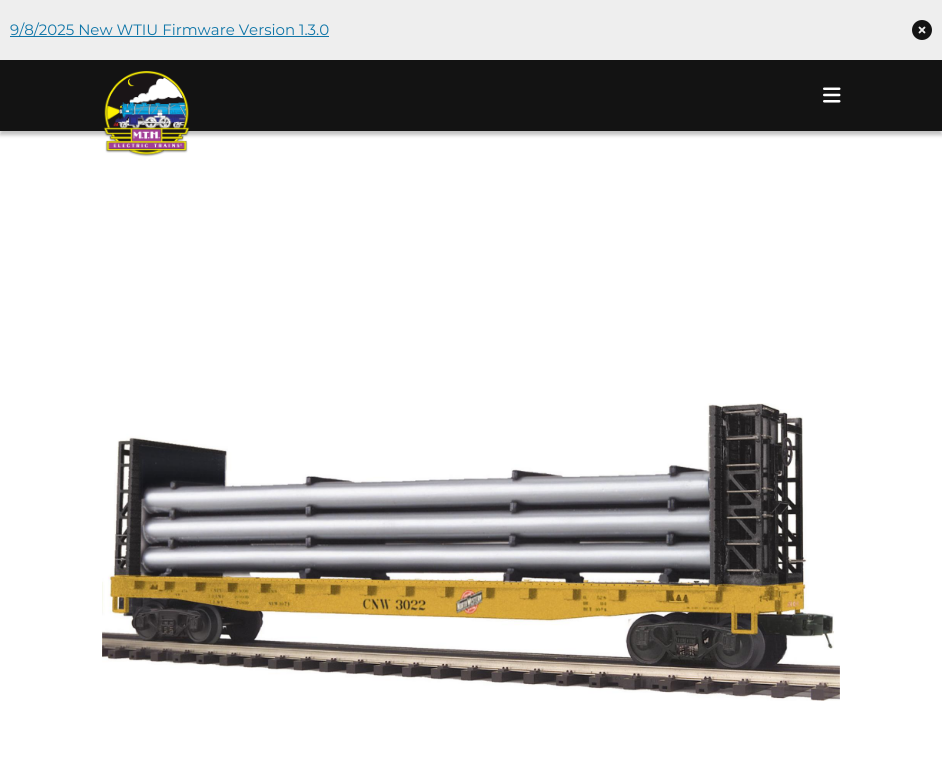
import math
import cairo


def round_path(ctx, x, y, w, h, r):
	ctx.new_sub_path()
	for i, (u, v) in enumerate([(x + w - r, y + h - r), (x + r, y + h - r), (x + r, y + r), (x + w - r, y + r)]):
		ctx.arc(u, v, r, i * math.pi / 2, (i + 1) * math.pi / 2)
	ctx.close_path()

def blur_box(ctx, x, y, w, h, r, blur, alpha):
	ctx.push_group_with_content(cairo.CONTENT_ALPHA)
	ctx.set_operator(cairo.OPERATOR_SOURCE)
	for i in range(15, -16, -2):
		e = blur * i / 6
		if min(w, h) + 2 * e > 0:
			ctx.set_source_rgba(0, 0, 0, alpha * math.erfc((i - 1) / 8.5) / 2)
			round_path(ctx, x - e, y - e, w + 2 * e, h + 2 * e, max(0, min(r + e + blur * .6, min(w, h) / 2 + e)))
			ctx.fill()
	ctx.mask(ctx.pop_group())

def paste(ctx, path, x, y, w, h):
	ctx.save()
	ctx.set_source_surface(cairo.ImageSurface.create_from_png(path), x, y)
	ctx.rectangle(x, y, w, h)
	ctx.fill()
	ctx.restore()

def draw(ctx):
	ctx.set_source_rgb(1, 1, 1)
	ctx.paint()
	ctx.set_source_rgb(0.933, 0.933, 0.933)
	ctx.rectangle(0, 0, 942, 60)
	ctx.fill()
	ctx.set_source_rgb(0.063, 0.463, 0.659)
	ctx.rectangle(10, 36, 319, 1)
	ctx.fill()
	ctx.select_font_face('Montserrat')
	ctx.set_font_size(15)
	ctx.move_to(10, 35)
	ctx.show_text('9/8/2025 New WTIU Firmware Version 1.3.0')
	paste(ctx, 'media/1.png', 912, 20, 20, 20)
	ctx.set_source_rgb(0, 0, 0)
	blur_box(ctx, 0, 64, 942, 71, 0, 2, 0.25)
	ctx.set_source_rgb(0.078, 0.078, 0.078)
	ctx.rectangle(0, 60, 942, 71)
	ctx.fill()
	paste(ctx, 'media/2.png', 103, 71, 87, 86)
	paste(ctx, 'media/3.png', 823, 87, 18, 16)
	paste(ctx, 'media/4.png', 102, 403, 738, 298)


surface = cairo.ImageSurface(cairo.FORMAT_RGB24, 942, 779)
ctx = cairo.Context(surface)
options = cairo.FontOptions()
options.set_hint_metrics(cairo.HINT_METRICS_OFF)
options.set_hint_style(cairo.HINT_STYLE_NONE)
ctx.set_font_options(options)
ctx.set_miter_limit(4)
draw(ctx)
surface.write_to_png('image.png')
